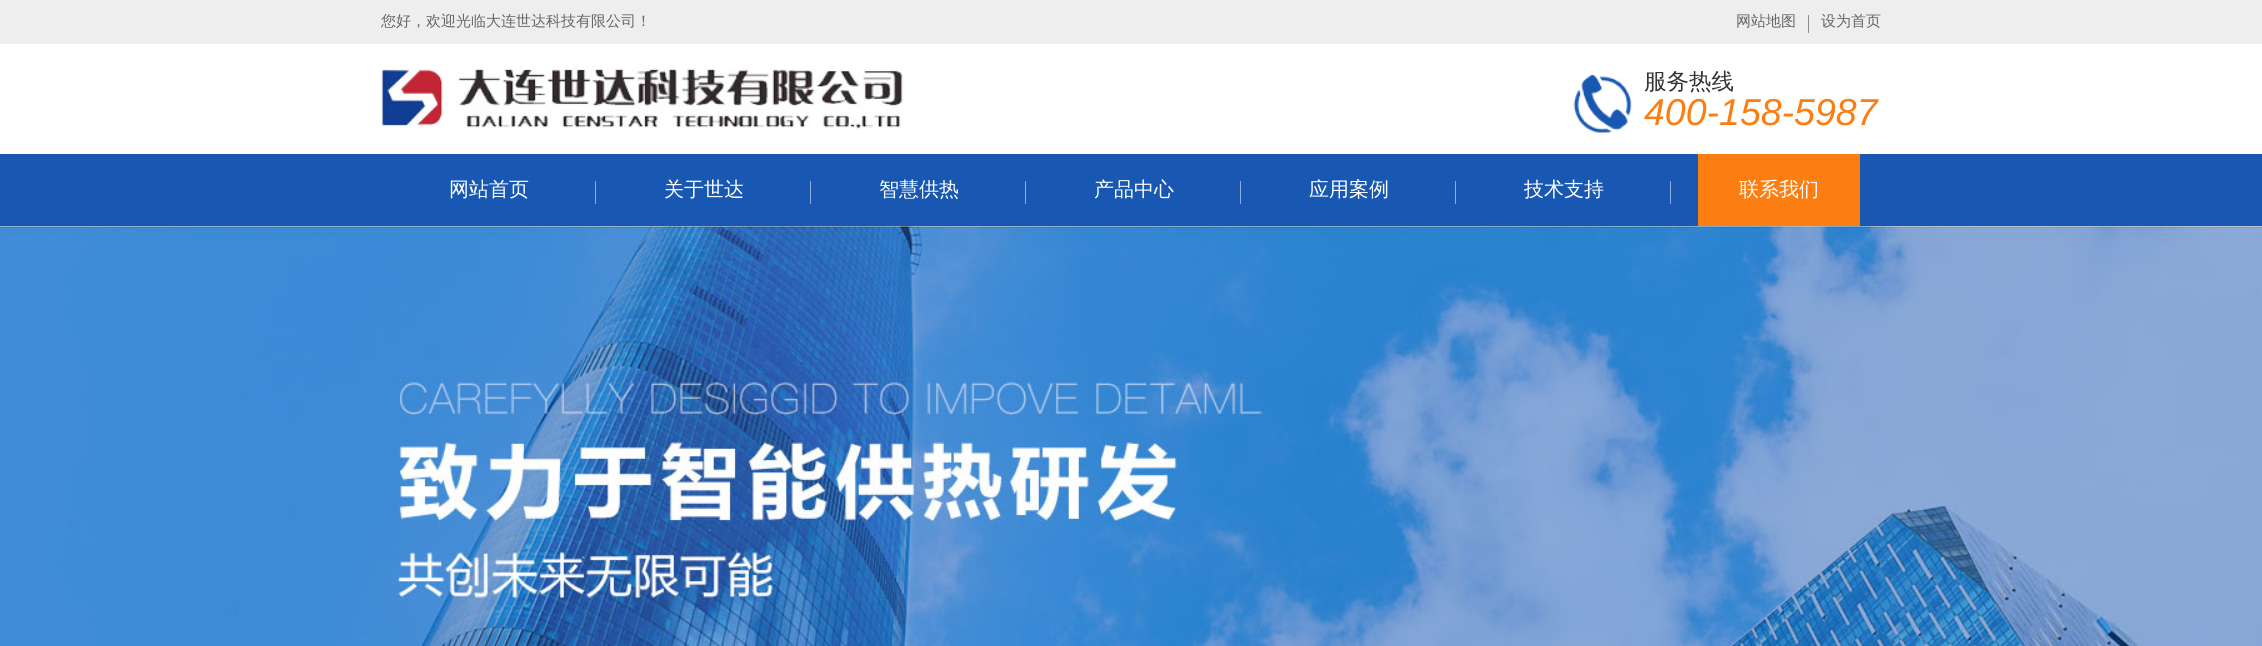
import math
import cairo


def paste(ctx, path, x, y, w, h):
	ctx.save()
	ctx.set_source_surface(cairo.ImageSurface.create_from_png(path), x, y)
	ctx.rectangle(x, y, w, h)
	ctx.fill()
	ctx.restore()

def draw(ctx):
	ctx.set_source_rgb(1, 1, 1)
	ctx.paint()
	ctx.set_source_rgb(0.933, 0.933, 0.933)
	ctx.rectangle(0, 0, 2262, 44)
	ctx.fill()
	ctx.select_font_face('WenQuanYi Zen Hei Medium')
	ctx.set_font_size(15)
	ctx.set_source_rgb(0.4, 0.4, 0.4)
	ctx.move_to(381, 26)
	ctx.show_text('您好，欢迎光临大连世达科技有限公司！')
	ctx.move_to(1736, 26)
	ctx.show_text('网站地图')
	ctx.set_source_rgb(0.561, 0.561, 0.561)
	ctx.rectangle(1808, 15, 1, 18)
	ctx.fill()
	ctx.set_source_rgb(0.4, 0.4, 0.4)
	ctx.move_to(1821, 26)
	ctx.show_text('设为首页')
	paste(ctx, 'media/1.png', 381, 68, 522, 61)
	paste(ctx, 'media/2.png', 1573, 75, 59, 58)
	ctx.set_font_size(22.5)
	ctx.set_source_rgb(0.2, 0.2, 0.2)
	ctx.move_to(1644, 89)
	ctx.show_text('服务热线')
	ctx.select_font_face('Liberation Sans', cairo.FONT_SLANT_ITALIC)
	ctx.set_font_size(37.5)
	ctx.set_source_rgb(0.988, 0.49, 0.071)
	ctx.move_to(1644, 125)
	ctx.show_text('400-158-5987')
	ctx.set_source_rgb(0.094, 0.345, 0.698)
	ctx.rectangle(0, 154, 2262, 72)
	ctx.fill()
	ctx.select_font_face('WenQuanYi Zen Hei Medium')
	ctx.set_font_size(20)
	ctx.set_source_rgb(1, 1, 1)
	ctx.move_to(449, 196)
	ctx.show_text('网站首页')
	ctx.set_source_rgb(0.549, 0.675, 0.851)
	ctx.rectangle(595, 181, 1, 23)
	ctx.fill()
	ctx.set_source_rgb(1, 1, 1)
	ctx.move_to(664, 196)
	ctx.show_text('关于世达')
	ctx.set_source_rgb(0.549, 0.675, 0.851)
	ctx.rectangle(810, 181, 1, 23)
	ctx.fill()
	ctx.set_source_rgb(1, 1, 1)
	ctx.move_to(879, 196)
	ctx.show_text('智慧供热')
	ctx.set_source_rgb(0.549, 0.675, 0.851)
	ctx.rectangle(1025, 181, 1, 23)
	ctx.fill()
	ctx.set_source_rgb(1, 1, 1)
	ctx.move_to(1094, 196)
	ctx.show_text('产品中心')
	ctx.set_source_rgb(0.549, 0.675, 0.851)
	ctx.rectangle(1240, 181, 1, 23)
	ctx.fill()
	ctx.set_source_rgb(1, 1, 1)
	ctx.move_to(1309, 196)
	ctx.show_text('应用案例')
	ctx.set_source_rgb(0.549, 0.675, 0.851)
	ctx.rectangle(1455, 181, 1, 23)
	ctx.fill()
	ctx.set_source_rgb(1, 1, 1)
	ctx.move_to(1524, 196)
	ctx.show_text('技术支持')
	ctx.set_source_rgb(0.549, 0.675, 0.851)
	ctx.rectangle(1670, 181, 1, 23)
	ctx.fill()
	ctx.set_source_rgb(0.988, 0.49, 0.071)
	ctx.rectangle(1698, 154, 162, 72)
	ctx.fill()
	ctx.set_source_rgb(1, 1, 1)
	ctx.move_to(1739, 196)
	ctx.show_text('联系我们')
	paste(ctx, 'media/3.png', 0, 226, 2262, 420)


surface = cairo.ImageSurface(cairo.FORMAT_RGB24, 2262, 646)
ctx = cairo.Context(surface)
options = cairo.FontOptions()
options.set_hint_metrics(cairo.HINT_METRICS_OFF)
options.set_hint_style(cairo.HINT_STYLE_NONE)
ctx.set_font_options(options)
ctx.set_miter_limit(4)
draw(ctx)
surface.write_to_png('image.png')
